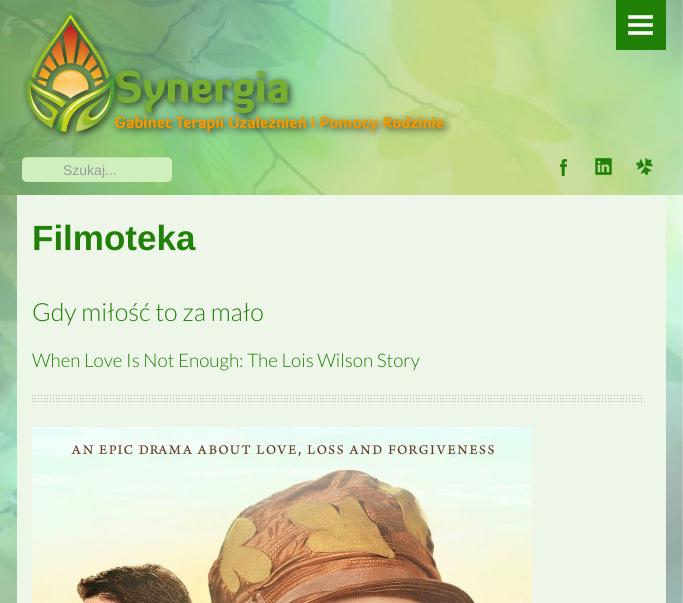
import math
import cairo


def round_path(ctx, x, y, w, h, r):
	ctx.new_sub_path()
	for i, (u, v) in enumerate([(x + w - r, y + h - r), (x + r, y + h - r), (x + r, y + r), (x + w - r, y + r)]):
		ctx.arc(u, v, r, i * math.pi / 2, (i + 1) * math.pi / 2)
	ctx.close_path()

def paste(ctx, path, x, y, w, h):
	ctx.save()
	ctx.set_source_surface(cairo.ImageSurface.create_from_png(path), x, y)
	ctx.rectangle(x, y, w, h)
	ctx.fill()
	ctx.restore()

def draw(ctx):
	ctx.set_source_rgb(1, 1, 1)
	ctx.paint()
	paste(ctx, 'media/1.png', 0, 0, 683, 603)
	ctx.set_source_rgba(0.129, 0.502, 0.035, 0.2)
	ctx.rectangle(0, 0, 683, 145)
	ctx.fill()
	paste(ctx, 'media/2.png', 22, 9, 430, 131)
	ctx.set_source_rgb(0.129, 0.502, 0.035)
	ctx.rectangle(616, 0, 50, 50)
	ctx.fill()
	paste(ctx, 'media/3.png', 628, 15, 25, 20)
	ctx.set_source_rgba(0.129, 0.502, 0.035, 0.2)
	ctx.rectangle(0, 145, 683, 50)
	ctx.fill()
	ctx.set_source_rgb(0.812, 0.941, 0.741)
	round_path(ctx, 22, 157, 150, 25, 5)
	ctx.fill()
	ctx.set_source_rgba(0, 0, 0, 0.07)
	ctx.new_path()
	ctx.move_to(27, 158)
	ctx.line_to(167, 158)
	ctx.curve_to(170, 158, 172, 160, 172, 163)
	ctx.line_to(172, 162)
	ctx.curve_to(172, 159, 170, 157, 167, 157)
	ctx.line_to(27, 157)
	ctx.curve_to(24, 157, 22, 159, 22, 162)
	ctx.line_to(22, 163)
	ctx.curve_to(22, 160, 24, 158, 27, 158)
	ctx.close_path()
	ctx.fill()
	ctx.select_font_face('Liberation Sans')
	ctx.set_font_size(14)
	ctx.set_source_rgb(0.6, 0.6, 0.6)
	ctx.move_to(63, 175)
	ctx.show_text('Szukaj...')
	paste(ctx, 'media/4.png', 560, 159, 7, 17)
	paste(ctx, 'media/5.png', 595, 158, 17, 17)
	paste(ctx, 'media/6.png', 636, 158, 17, 17)
	ctx.set_source_rgb(0.929, 0.961, 0.914)
	ctx.rectangle(17, 195, 649, 408)
	ctx.fill()
	ctx.select_font_face('Liberation Sans', cairo.FONT_SLANT_NORMAL, cairo.FONT_WEIGHT_BOLD)
	ctx.set_font_size(35)
	ctx.set_source_rgb(0.129, 0.502, 0.035)
	ctx.move_to(32, 250)
	ctx.show_text('Filmoteka')
	paste(ctx, 'media/7.png', 32, 395, 610, 7)
	ctx.select_font_face('Lato Light')
	ctx.set_font_size(25)
	ctx.move_to(32, 321)
	ctx.show_text('Gdy miłość to za mało')
	ctx.set_font_size(18.75)
	ctx.move_to(32, 367)
	ctx.show_text('When Love Is Not Enough: The Lois Wilson Story')
	paste(ctx, 'media/8.png', 32, 427, 500, 176)


surface = cairo.ImageSurface(cairo.FORMAT_RGB24, 683, 603)
ctx = cairo.Context(surface)
options = cairo.FontOptions()
options.set_hint_metrics(cairo.HINT_METRICS_OFF)
options.set_hint_style(cairo.HINT_STYLE_NONE)
ctx.set_font_options(options)
ctx.set_miter_limit(4)
draw(ctx)
surface.write_to_png('image.png')
